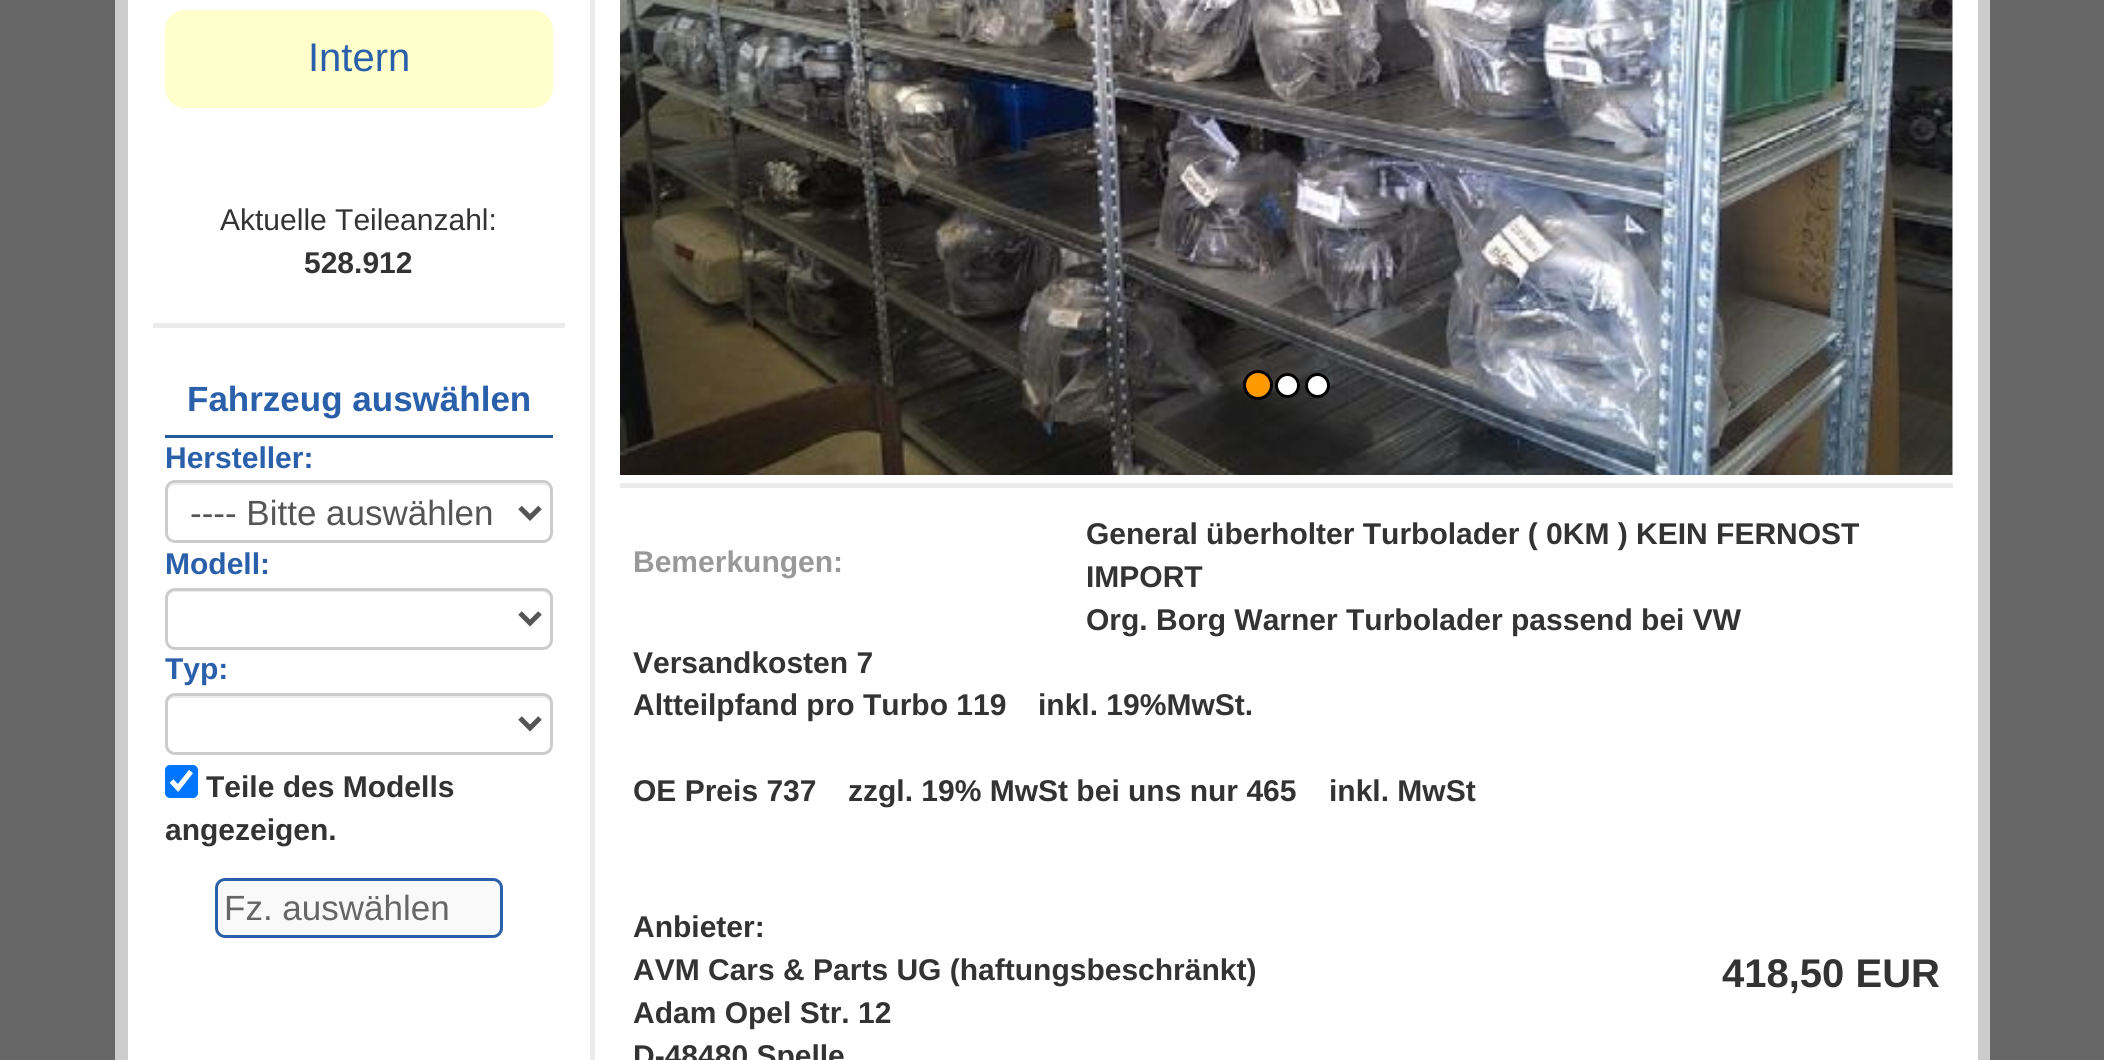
import math
import cairo


def round_path(ctx, x, y, w, h, r):
	ctx.new_sub_path()
	for i, (u, v) in enumerate([(x + w - r, y + h - r), (x + r, y + h - r), (x + r, y + r), (x + w - r, y + r)]):
		ctx.arc(u, v, r, i * math.pi / 2, (i + 1) * math.pi / 2)
	ctx.close_path()

def paste(ctx, path, x, y, w, h):
	ctx.save()
	ctx.set_source_surface(cairo.ImageSurface.create_from_png(path), x, y)
	ctx.rectangle(x, y, w, h)
	ctx.fill()
	ctx.restore()

def draw(ctx):
	ctx.set_source_rgb(0.4, 0.4, 0.4)
	ctx.paint()
	ctx.set_source_rgb(1, 1, 1)
	ctx.rectangle(128, 0, 462, 1060)
	ctx.fill()
	ctx.rectangle(121.5, -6.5, 1862, 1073)
	ctx.set_source_rgb(0.8, 0.8, 0.8)
	ctx.set_line_width(13)
	ctx.stroke()
	ctx.set_source_rgb(1, 1, 0.8)
	round_path(ctx, 165, 10, 388, 98, 20)
	ctx.fill()
	ctx.select_font_face('Liberation Sans')
	ctx.set_font_size(40)
	ctx.set_source_rgb(0.165, 0.373, 0.667)
	ctx.move_to(308, 71)
	ctx.show_text('Intern')
	ctx.set_source_rgb(0.918, 0.918, 0.918)
	ctx.rectangle(153, 323, 412, 5)
	ctx.fill()
	ctx.set_font_size(30)
	ctx.set_source_rgb(0.2, 0.2, 0.2)
	ctx.move_to(220, 230)
	ctx.show_text('Aktuelle Teileanzahl:')
	ctx.select_font_face('Liberation Sans', cairo.FONT_SLANT_NORMAL, cairo.FONT_WEIGHT_BOLD)
	ctx.move_to(304, 273)
	ctx.show_text('528.912')
	ctx.set_source_rgb(0.149, 0.349, 0.616)
	ctx.rectangle(165, 435, 388, 3)
	ctx.fill()
	ctx.set_font_size(35)
	ctx.set_source_rgb(0.165, 0.373, 0.667)
	ctx.move_to(187, 411)
	ctx.show_text('Fahrzeug auswählen')
	ctx.set_font_size(30)
	ctx.move_to(165, 468)
	ctx.show_text('Hersteller:')
	ctx.set_source_rgb(0.925, 0.925, 0.925)
	ctx.new_path()
	ctx.move_to(175, 485)
	ctx.line_to(542, 485)
	ctx.curve_to(547, 485, 550, 488, 550, 492)
	ctx.curve_to(550, 487, 547, 483, 542, 483)
	ctx.line_to(176, 483)
	ctx.curve_to(171, 483, 168, 487, 168, 492)
	ctx.curve_to(168, 488, 171, 485, 175, 485)
	ctx.close_path()
	ctx.fill()
	round_path(ctx, 166.5, 481.5, 385, 60, 8.5)
	ctx.set_source_rgb(0.8, 0.8, 0.8)
	ctx.set_line_width(3)
	ctx.stroke()
	ctx.new_path()
	ctx.move_to(520, 507.5)
	ctx.line_to(530, 517.5)
	ctx.line_to(540, 507.5)
	ctx.set_source_rgb(0.333, 0.333, 0.333)
	ctx.set_line_width(5)
	ctx.stroke()
	ctx.select_font_face('Liberation Sans')
	ctx.set_font_size(35)
	ctx.move_to(190, 525)
	ctx.show_text('---- Bitte auswählen')
	ctx.select_font_face('Liberation Sans', cairo.FONT_SLANT_NORMAL, cairo.FONT_WEIGHT_BOLD)
	ctx.set_font_size(30)
	ctx.set_source_rgb(0.165, 0.373, 0.667)
	ctx.move_to(165, 574)
	ctx.show_text('Modell:')
	ctx.set_source_rgb(0.925, 0.925, 0.925)
	ctx.new_path()
	ctx.move_to(175, 592)
	ctx.line_to(542, 592)
	ctx.curve_to(547, 592, 550, 596, 550, 600)
	ctx.curve_to(550, 595, 548, 590, 542, 590)
	ctx.line_to(174, 590)
	ctx.curve_to(169, 591, 168, 596, 168, 600)
	ctx.curve_to(168, 596, 171, 592, 175, 592)
	ctx.close_path()
	ctx.fill()
	round_path(ctx, 166.5, 589.5, 385, 59, 8.5)
	ctx.set_source_rgb(0.8, 0.8, 0.8)
	ctx.set_line_width(3)
	ctx.stroke()
	ctx.new_path()
	ctx.move_to(520, 613)
	ctx.line_to(530, 623)
	ctx.line_to(540, 613)
	ctx.set_source_rgb(0.333, 0.333, 0.333)
	ctx.set_line_width(5)
	ctx.stroke()
	ctx.set_source_rgb(0.165, 0.373, 0.667)
	ctx.move_to(165, 679)
	ctx.show_text('Typ:')
	ctx.set_source_rgb(0.925, 0.925, 0.925)
	ctx.new_path()
	ctx.move_to(175, 698)
	ctx.line_to(542, 698)
	ctx.curve_to(547, 698, 550, 701, 550, 705)
	ctx.curve_to(550, 700, 548, 695, 542, 695)
	ctx.line_to(174, 695)
	ctx.curve_to(169, 696, 168, 701, 168, 705)
	ctx.curve_to(168, 701, 171, 698, 175, 698)
	ctx.close_path()
	ctx.fill()
	round_path(ctx, 166.5, 694.5, 385, 59, 8.5)
	ctx.set_source_rgb(0.8, 0.8, 0.8)
	ctx.set_line_width(3)
	ctx.stroke()
	ctx.new_path()
	ctx.move_to(520, 718)
	ctx.line_to(530, 728)
	ctx.line_to(540, 718)
	ctx.set_source_rgb(0.333, 0.333, 0.333)
	ctx.set_line_width(5)
	ctx.stroke()
	ctx.set_source_rgb(0, 0.459, 1)
	round_path(ctx, 165, 765, 33, 33, 5)
	ctx.fill()
	ctx.new_path()
	ctx.move_to(171.5, 781)
	ctx.line_to(178, 788)
	ctx.line_to(191, 771.5)
	ctx.set_source_rgb(1, 1, 1)
	ctx.set_line_width(5.2)
	ctx.stroke()
	ctx.set_source_rgb(0.2, 0.2, 0.2)
	ctx.move_to(206, 797)
	ctx.show_text('Teile des Modells')
	ctx.move_to(165, 840)
	ctx.show_text('angezeigen.')
	ctx.set_source_rgb(0.973, 0.973, 0.973)
	round_path(ctx, 216.5, 879.5, 285, 57, 8.5)
	ctx.fill_preserve()
	ctx.set_source_rgb(0.165, 0.373, 0.667)
	ctx.set_line_width(3)
	ctx.stroke()
	ctx.select_font_face('Liberation Sans')
	ctx.set_font_size(35)
	ctx.set_source_rgb(0.4, 0.4, 0.4)
	ctx.move_to(224, 920)
	ctx.show_text('Fz. auswählen')
	ctx.set_source_rgb(1, 1, 1)
	ctx.rectangle(595, 0, 1383, 1060)
	ctx.fill()
	ctx.set_source_rgb(0.918, 0.918, 0.918)
	ctx.rectangle(590, 0, 5, 1060)
	ctx.rectangle(620, 483, 1333, 5)
	ctx.fill()
	paste(ctx, 'media/1.png', 620, 0, 1333, 475)
	ctx.set_source_rgb(1, 0.6, 0)
	ctx.arc(1258, 385, 13.5, 0, 2 * math.pi)
	ctx.fill_preserve()
	ctx.set_source_rgb(0, 0, 0)
	ctx.stroke()
	ctx.set_source_rgb(1, 1, 1)
	ctx.arc(1287.5, 385.5, 11, 0, 2 * math.pi)
	ctx.fill_preserve()
	ctx.set_source_rgb(0, 0, 0)
	ctx.stroke()
	ctx.set_source_rgb(1, 1, 1)
	ctx.arc(1317.5, 385.5, 11, 0, 2 * math.pi)
	ctx.fill_preserve()
	ctx.set_source_rgb(0, 0, 0)
	ctx.stroke()
	gradient = cairo.LinearGradient(1753, 75, 1953, 75)
	gradient.add_color_stop_rgba(0, 0, 0, 0, 0)
	gradient.add_color_stop_rgba(1, 0, 0, 0, 0.25)
	ctx.set_source(gradient)
	ctx.rectangle(1770, 0, 183, 475)
	ctx.fill()
	ctx.select_font_face('Liberation Sans', cairo.FONT_SLANT_NORMAL, cairo.FONT_WEIGHT_BOLD)
	ctx.set_font_size(30)
	ctx.set_source_rgb(0.2, 0.2, 0.2)
	for x, y, s in [
		(1086, 544, 'General überholter Turbolader ( 0KM ) KEIN FERNOST'),
		(1086, 587, 'IMPORT'),
		(1086, 630, 'Org. Borg Warner Turbolader passend bei VW'),
		(633, 673, 'Versandkosten 7'),
		(633, 715, 'Altteilpfand pro Turbo 119'),
		(1038, 715, 'inkl. 19%MwSt.'),
		(633, 801, 'OE Preis 737'),
		(848, 801, 'zzgl. 19% MwSt bei uns nur 465'),
		(1329, 801, 'inkl. MwSt'),
	]:
		ctx.move_to(x, y)
		ctx.show_text(s)
	ctx.set_source_rgb(0.6, 0.6, 0.6)
	ctx.move_to(633, 572)
	ctx.show_text('Bemerkungen:')
	ctx.set_source_rgb(0.2, 0.2, 0.2)
	for x, y, s in [
		(633, 937, 'Anbieter:'),
		(633, 980, 'AVM Cars & Parts UG (haftungsbeschränkt)'),
		(633, 1023, 'Adam Opel Str. 12'),
		(633, 1066, 'D-48480 Spelle'),
	]:
		ctx.move_to(x, y)
		ctx.show_text(s)
	ctx.set_font_size(40)
	ctx.move_to(1722, 987)
	ctx.show_text('418,50 EUR')


surface = cairo.ImageSurface(cairo.FORMAT_RGB24, 2104, 1060)
ctx = cairo.Context(surface)
options = cairo.FontOptions()
options.set_hint_metrics(cairo.HINT_METRICS_OFF)
options.set_hint_style(cairo.HINT_STYLE_NONE)
ctx.set_font_options(options)
ctx.set_miter_limit(4)
draw(ctx)
surface.write_to_png('image.png')
